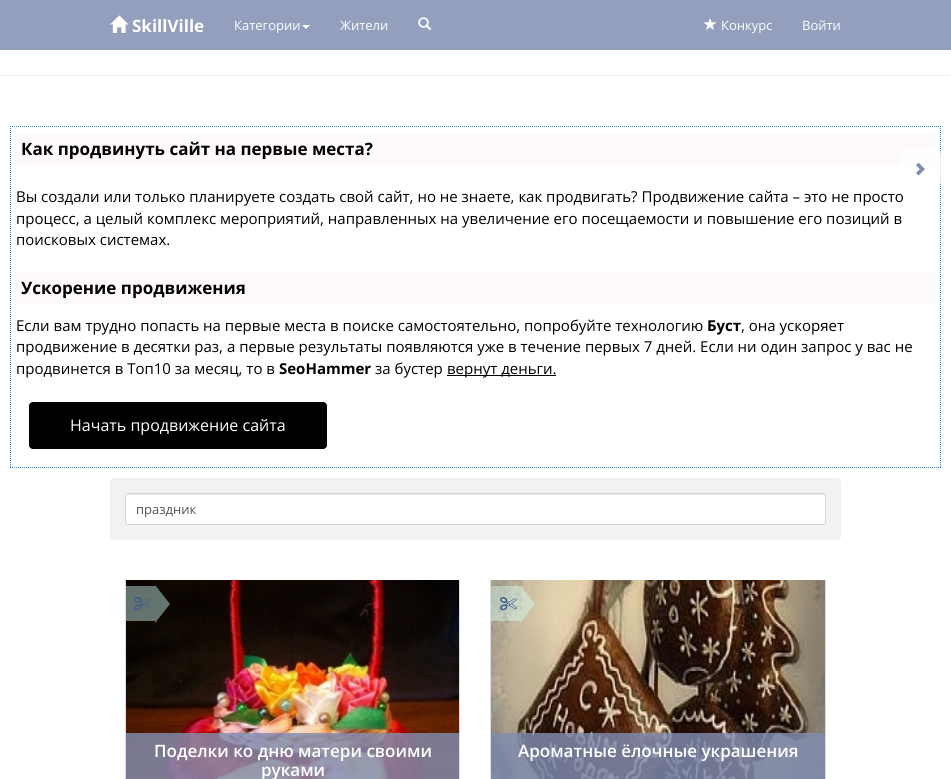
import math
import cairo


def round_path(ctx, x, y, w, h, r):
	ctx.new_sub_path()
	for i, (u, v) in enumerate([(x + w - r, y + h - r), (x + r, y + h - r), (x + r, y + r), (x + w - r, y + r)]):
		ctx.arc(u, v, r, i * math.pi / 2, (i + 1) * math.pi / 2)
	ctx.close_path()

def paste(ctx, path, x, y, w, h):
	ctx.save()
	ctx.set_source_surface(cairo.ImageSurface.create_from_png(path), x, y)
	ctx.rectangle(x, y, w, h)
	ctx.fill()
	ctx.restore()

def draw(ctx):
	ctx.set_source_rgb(1, 1, 1)
	ctx.paint()
	ctx.set_source_rgb(0.58, 0.62, 0.741)
	ctx.rectangle(0, 0, 951, 50)
	ctx.fill()
	paste(ctx, 'media/1.png', 110, 15, 19, 18)
	ctx.select_font_face('Open Sans', cairo.FONT_SLANT_NORMAL, cairo.FONT_WEIGHT_BOLD)
	ctx.set_font_size(17)
	ctx.set_source_rgb(1, 1, 1)
	ctx.move_to(132, 32)
	ctx.show_text('SkillVille')
	ctx.select_font_face('Open Sans')
	ctx.set_font_size(13)
	ctx.move_to(234, 30)
	ctx.show_text('Категории')
	ctx.new_path()
	ctx.move_to(302, 25)
	ctx.line_to(310, 25)
	ctx.line_to(306, 29)
	ctx.close_path()
	ctx.fill()
	ctx.move_to(340, 30)
	ctx.show_text('Жители')
	paste(ctx, 'media/2.png', 418, 17, 14, 14)
	paste(ctx, 'media/3.png', 703, 18, 14, 12)
	ctx.move_to(721, 30)
	ctx.show_text('Конкурс')
	ctx.move_to(802, 30)
	ctx.show_text('Войти')
	ctx.set_source_rgb(0.937, 0.937, 0.937)
	ctx.rectangle(0, 75, 951, 1)
	ctx.fill()
	ctx.new_path()
	ctx.move_to(10, 126.5)
	ctx.line_to(941, 126.5)
	ctx.set_source_rgb(0.275, 0.51, 0.706)
	ctx.set_line_width(1)
	ctx.set_dash([1, 1])
	ctx.stroke()
	ctx.new_path()
	ctx.move_to(940.5, 126)
	ctx.line_to(940.5, 468)
	ctx.stroke()
	ctx.new_path()
	ctx.move_to(10, 467.5)
	ctx.line_to(941, 467.5)
	ctx.stroke()
	ctx.new_path()
	ctx.move_to(10.5, 126)
	ctx.line_to(10.5, 468)
	ctx.stroke()
	ctx.set_source_rgb(1, 0.98, 0.98)
	ctx.rectangle(16, 132, 919, 34)
	ctx.fill()
	ctx.select_font_face('Open Sans', cairo.FONT_SLANT_NORMAL, cairo.FONT_WEIGHT_BOLD)
	ctx.set_font_size(17)
	ctx.set_source_rgb(0, 0, 0)
	ctx.move_to(21, 155)
	ctx.show_text('Как продвинуть сайт на первые места?')
	ctx.select_font_face('Open Sans')
	ctx.set_font_size(15)
	for x, y, s in [
		(16, 202, 'Вы создали или только планируете создать свой сайт, но не знаете, как продвигать? Продвижение сайта – это не просто'),
		(16, 224, 'процесс, а целый комплекс мероприятий, направленных на увеличение его посещаемости и повышение его позиций в'),
		(16, 245, 'поисковых системах.'),
	]:
		ctx.move_to(x, y)
		ctx.show_text(s)
	ctx.set_source_rgb(1, 0.98, 0.98)
	ctx.rectangle(16, 271, 919, 34)
	ctx.fill()
	ctx.select_font_face('Open Sans', cairo.FONT_SLANT_NORMAL, cairo.FONT_WEIGHT_BOLD)
	ctx.set_font_size(17)
	ctx.set_source_rgb(0, 0, 0)
	ctx.move_to(21, 294)
	ctx.show_text('Ускорение продвижения')
	ctx.select_font_face('Open Sans')
	ctx.set_font_size(15)
	ctx.move_to(16, 331)
	ctx.show_text('Если вам трудно попасть на первые места в поиске самостоятельно, попробуйте технологию')
	ctx.select_font_face('Open Sans', cairo.FONT_SLANT_NORMAL, cairo.FONT_WEIGHT_BOLD)
	ctx.move_to(707, 331)
	ctx.show_text('Буст')
	ctx.select_font_face('Open Sans')
	for x, y, s in [
		(741, 331, ', она ускоряет'),
		(16, 352, 'продвижение в десятки раз, а первые результаты появляются уже в течение первых 7 дней. Если ни один запрос у вас не'),
		(16, 374, 'продвинется в Топ10 за месяц, то в'),
	]:
		ctx.move_to(x, y)
		ctx.show_text(s)
	ctx.select_font_face('Open Sans', cairo.FONT_SLANT_NORMAL, cairo.FONT_WEIGHT_BOLD)
	ctx.move_to(279, 374)
	ctx.show_text('SeoHammer')
	ctx.select_font_face('Open Sans')
	ctx.move_to(375, 374)
	ctx.show_text('за бустер')
	ctx.rectangle(447, 375, 109, 1)
	ctx.fill()
	ctx.move_to(447, 374)
	ctx.show_text('вернут деньги.')
	round_path(ctx, 28.5, 401.5, 299, 48, 4.5)
	ctx.fill_preserve()
	ctx.set_source_rgb(1, 1, 1)
	ctx.set_dash([])
	ctx.stroke()
	ctx.set_font_size(16)
	ctx.move_to(70, 431)
	ctx.show_text('Начать продвижение сайта')
	ctx.set_source_rgb(0.949, 0.949, 0.949)
	round_path(ctx, 110, 478, 731, 62, 3)
	ctx.fill()
	ctx.set_source_rgb(1, 1, 1)
	round_path(ctx, 125, 493, 701, 32, 3)
	ctx.fill()
	ctx.set_source_rgb(0.925, 0.925, 0.925)
	ctx.new_path()
	ctx.move_to(128, 495)
	ctx.line_to(823, 495)
	ctx.curve_to(824, 495, 825, 496, 825, 497)
	ctx.curve_to(825, 496, 825, 494, 823, 494)
	ctx.line_to(128, 494)
	ctx.curve_to(126, 494, 126, 496, 126, 497)
	ctx.curve_to(126, 496, 127, 495, 128, 495)
	ctx.close_path()
	ctx.fill()
	round_path(ctx, 125.5, 493.5, 700, 31, 2.5)
	ctx.set_source_rgb(0.831, 0.831, 0.831)
	ctx.stroke()
	ctx.set_font_size(13)
	ctx.set_source_rgb(0.333, 0.333, 0.333)
	ctx.move_to(136, 514)
	ctx.show_text('праздник')
	ctx.set_source_rgb(0.867, 0.867, 0.867)
	ctx.rectangle(459, 580, 1, 199)
	ctx.fill()
	ctx.rectangle(125, 580, 1, 199)
	ctx.fill()
	paste(ctx, 'media/4.png', 126, 580, 333, 199)
	ctx.set_source_rgba(0.851, 1, 0.969, 0.44)
	ctx.rectangle(126, 586, 29, 35)
	ctx.fill()
	paste(ctx, 'media/5.png', 134, 597, 17, 14)
	ctx.new_path()
	ctx.move_to(155, 623)
	ctx.line_to(155, 585)
	ctx.line_to(170, 604)
	ctx.close_path()
	ctx.fill()
	ctx.set_source_rgba(0.502, 0.549, 0.69, 0.82)
	ctx.rectangle(126, 733, 333, 46)
	ctx.fill()
	ctx.select_font_face('Open Sans SemiBold')
	ctx.set_font_size(17)
	ctx.set_source_rgb(1, 1, 1)
	ctx.move_to(154, 757)
	ctx.show_text('Поделки ко дню матери своими')
	ctx.move_to(261, 776)
	ctx.show_text('руками')
	ctx.set_source_rgb(0.867, 0.867, 0.867)
	ctx.rectangle(825, 580, 1, 199)
	ctx.fill()
	ctx.rectangle(490, 580, 1, 199)
	ctx.fill()
	paste(ctx, 'media/6.png', 491, 580, 334, 199)
	ctx.set_source_rgba(0.851, 1, 0.969, 0.44)
	ctx.rectangle(491, 586, 29, 35)
	ctx.fill()
	paste(ctx, 'media/7.png', 500, 597, 18, 14)
	ctx.new_path()
	ctx.move_to(520, 623)
	ctx.line_to(520, 585)
	ctx.line_to(535, 604)
	ctx.close_path()
	ctx.fill()
	ctx.set_source_rgba(0.502, 0.549, 0.69, 0.82)
	ctx.rectangle(491, 733, 334, 46)
	ctx.fill()
	ctx.set_source_rgb(1, 1, 1)
	ctx.move_to(518, 757)
	ctx.show_text('Ароматные ёлочные украшения')
	ctx.set_source_rgba(1, 1, 1, 0.72)
	round_path(ctx, 901, 149, 40, 37, 5)
	ctx.fill()
	paste(ctx, 'media/8.png', 916, 162, 9, 14)


surface = cairo.ImageSurface(cairo.FORMAT_RGB24, 951, 779)
ctx = cairo.Context(surface)
options = cairo.FontOptions()
options.set_hint_metrics(cairo.HINT_METRICS_OFF)
options.set_hint_style(cairo.HINT_STYLE_NONE)
ctx.set_font_options(options)
ctx.set_miter_limit(4)
draw(ctx)
surface.write_to_png('image.png')
